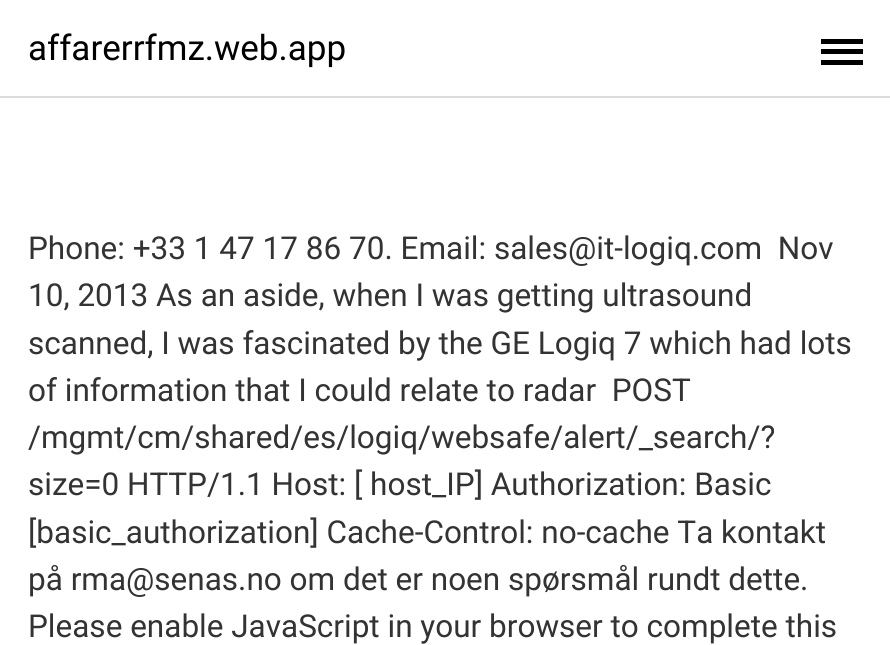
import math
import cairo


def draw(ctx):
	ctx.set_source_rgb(1, 1, 1)
	ctx.paint()
	ctx.set_source_rgb(0.859, 0.859, 0.859)
	ctx.rectangle(0, 96, 890, 2)
	ctx.fill()
	ctx.select_font_face('Roboto')
	ctx.set_font_size(35)
	ctx.set_source_rgb(0, 0, 0)
	ctx.move_to(28, 60)
	ctx.show_text('affarerrfmz.web.app')
	ctx.rectangle(821, 49, 42, 5)
	ctx.rectangle(821, 39, 42, 5)
	ctx.rectangle(821, 60, 42, 5)
	ctx.fill()
	ctx.set_font_size(31.5)
	ctx.set_source_rgb(0.2, 0.2, 0.2)
	for x, y, s in [
		(28, 259, 'Phone: +33 1 47 17 86 70. Email: sales@it-logiq.com  Nov'),
		(28, 306, '10, 2013 As an aside, when I was getting ultrasound'),
		(28, 354, 'scanned, I was fascinated by the GE Logiq 7 which had lots'),
		(28, 401, 'of information that I could relate to radar  POST'),
		(28, 448, '/mgmt/cm/shared/es/logiq/websafe/alert/_search/?'),
		(28, 495, 'size=0 HTTP/1.1 Host: [ host_IP] Authorization: Basic'),
		(28, 543, '[basic_authorization] Cache-Control: no-cache Ta kontakt'),
		(28, 590, 'på rma@senas.no om det er noen spørsmål rundt dette.'),
		(28, 637, 'Please enable JavaScript in your browser to complete this'),
	]:
		ctx.move_to(x, y)
		ctx.show_text(s)


surface = cairo.ImageSurface(cairo.FORMAT_RGB24, 890, 645)
ctx = cairo.Context(surface)
options = cairo.FontOptions()
options.set_hint_metrics(cairo.HINT_METRICS_OFF)
options.set_hint_style(cairo.HINT_STYLE_NONE)
ctx.set_font_options(options)
ctx.set_miter_limit(4)
draw(ctx)
surface.write_to_png('image.png')
